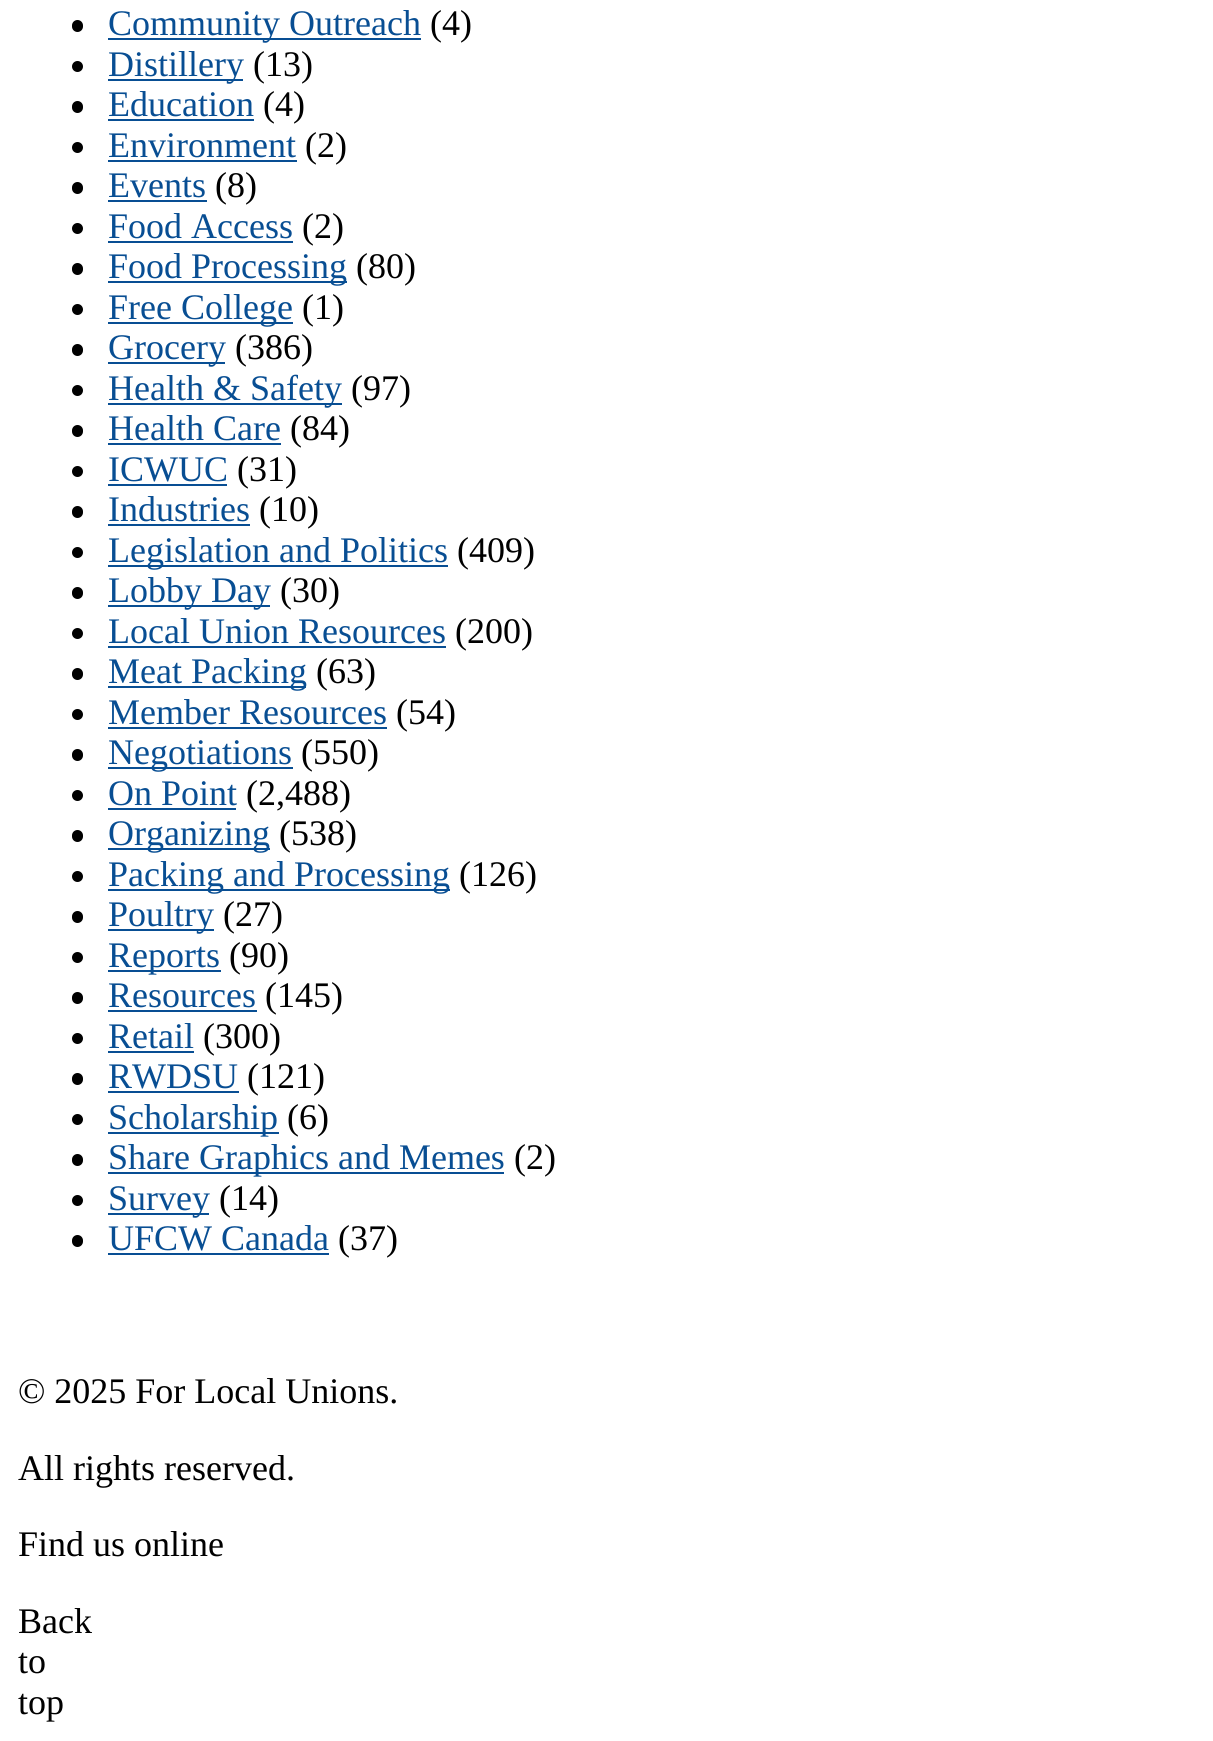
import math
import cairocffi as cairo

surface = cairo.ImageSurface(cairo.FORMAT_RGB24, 1213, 1741)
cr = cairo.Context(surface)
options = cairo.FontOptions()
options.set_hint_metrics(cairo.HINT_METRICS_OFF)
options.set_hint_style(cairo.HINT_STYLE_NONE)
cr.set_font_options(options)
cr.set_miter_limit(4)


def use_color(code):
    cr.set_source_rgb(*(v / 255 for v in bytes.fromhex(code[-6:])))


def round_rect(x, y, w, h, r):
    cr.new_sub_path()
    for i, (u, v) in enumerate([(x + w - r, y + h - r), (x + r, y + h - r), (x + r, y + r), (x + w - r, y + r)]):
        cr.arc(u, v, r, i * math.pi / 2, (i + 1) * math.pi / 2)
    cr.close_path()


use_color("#ffffff")
cr.paint()
use_color("#000000")
round_rect(72, 20, 11, 12, 5.5)
cr.fill()
use_color("#084e93")
cr.rectangle(108, 38, 313, 2)
cr.fill()
cr.select_font_face("Liberation Serif")
cr.set_font_size(36)
cr.move_to(108, 35)
cr.show_text("Community Outreach")
use_color("#000000")
cr.move_to(430, 35)
cr.show_text("(4)")
cr.new_path()
cr.arc(77.5, 66.5, 5.5, 0, 2 * math.pi)
cr.fill()
use_color("#084e93")
cr.rectangle(108, 79, 135, 2)
cr.fill()
cr.move_to(108, 76)
cr.show_text("Distillery")
use_color("#000000")
cr.move_to(253, 76)
cr.show_text("(13)")
round_rect(72, 101, 11, 12, 5.5)
cr.fill()
use_color("#084e93")
cr.move_to(108, 116)
cr.show_text("Education")
cr.rectangle(108, 119, 146, 2)
cr.fill()
use_color("#000000")
cr.move_to(263, 116)
cr.show_text("(4)")
cr.new_path()
cr.arc(77.5, 147.5, 5.5, 0, 2 * math.pi)
cr.fill()
use_color("#084e93")
cr.move_to(108, 157)
cr.show_text("Environment")
cr.rectangle(108, 160, 189, 2)
cr.fill()
use_color("#000000")
cr.move_to(305, 157)
cr.show_text("(2)")
round_rect(72, 182, 11, 12, 5.5)
cr.fill()
use_color("#084e93")
cr.move_to(108, 197)
cr.show_text("Events")
cr.rectangle(108, 200, 99, 2)
cr.fill()
use_color("#000000")
cr.move_to(215, 197)
cr.show_text("(8)")
cr.new_path()
cr.arc(77.5, 228.5, 5.5, 0, 2 * math.pi)
cr.fill()
use_color("#084e93")
cr.move_to(108, 238)
cr.show_text("Food Access")
cr.rectangle(108, 241, 185, 2)
cr.fill()
use_color("#000000")
cr.move_to(302, 238)
cr.show_text("(2)")
round_rect(72, 263, 11, 12, 5.5)
cr.fill()
use_color("#084e93")
cr.rectangle(108, 281, 239, 2)
cr.fill()
cr.move_to(108, 278)
cr.show_text("Food Processing")
use_color("#000000")
cr.move_to(356, 278)
cr.show_text("(80)")
cr.new_path()
cr.arc(77.5, 309.5, 5.5, 0, 2 * math.pi)
cr.fill()
use_color("#084e93")
cr.rectangle(108, 322, 185, 2)
cr.fill()
cr.move_to(108, 319)
cr.show_text("Free College")
use_color("#000000")
cr.move_to(302, 319)
cr.show_text("(1)")
round_rect(72, 344, 11, 12, 5.5)
cr.fill()
use_color("#084e93")
cr.rectangle(108, 362, 117, 2)
cr.fill()
cr.move_to(108, 359)
cr.show_text("Grocery")
use_color("#000000")
cr.move_to(235, 359)
cr.show_text("(386)")
cr.new_path()
cr.arc(77.5, 390.5, 5.5, 0, 2 * math.pi)
cr.fill()
use_color("#084e93")
cr.rectangle(108, 403, 234, 2)
cr.fill()
cr.move_to(108, 400)
cr.show_text("Health & Safety")
use_color("#000000")
cr.move_to(351, 400)
cr.show_text("(97)")
round_rect(72, 425, 11, 12, 5.5)
cr.fill()
use_color("#084e93")
cr.move_to(108, 440)
cr.show_text("Health Care")
cr.rectangle(108, 443, 173, 2)
cr.fill()
use_color("#000000")
cr.move_to(290, 440)
cr.show_text("(84)")
cr.new_path()
cr.arc(77.5, 471.5, 5.5, 0, 2 * math.pi)
cr.fill()
use_color("#084e93")
cr.move_to(108, 481)
cr.show_text("ICWUC")
cr.rectangle(108, 484, 119, 2)
cr.fill()
use_color("#000000")
cr.move_to(237, 481)
cr.show_text("(31)")
round_rect(72, 506, 11, 12, 5.5)
cr.fill()
use_color("#084e93")
cr.move_to(108, 521)
cr.show_text("Industries")
cr.rectangle(108, 524, 142, 2)
cr.fill()
use_color("#000000")
cr.move_to(259, 521)
cr.show_text("(10)")
cr.new_path()
cr.arc(77.5, 552.5, 5.5, 0, 2 * math.pi)
cr.fill()
use_color("#084e93")
cr.rectangle(108, 565, 340, 2)
cr.fill()
cr.move_to(108, 562)
cr.show_text("Legislation and Politics")
use_color("#000000")
cr.move_to(457, 562)
cr.show_text("(409)")
round_rect(72, 587, 11, 12, 5.5)
cr.fill()
use_color("#084e93")
cr.rectangle(108, 605, 162, 2)
cr.fill()
cr.move_to(108, 602)
cr.show_text("Lobby Day")
use_color("#000000")
cr.move_to(280, 602)
cr.show_text("(30)")
cr.new_path()
cr.arc(77.5, 633.5, 5.5, 0, 2 * math.pi)
cr.fill()
use_color("#084e93")
cr.move_to(108, 643)
cr.show_text("Local Union Resources")
cr.rectangle(108, 646, 338, 2)
cr.fill()
use_color("#000000")
cr.move_to(455, 643)
cr.show_text("(200)")
round_rect(72, 668, 11, 12, 5.5)
cr.fill()
use_color("#084e93")
cr.rectangle(108, 686, 198, 2)
cr.fill()
cr.move_to(108, 683)
cr.show_text("Meat Packing")
use_color("#000000")
cr.move_to(316, 683)
cr.show_text("(63)")
cr.new_path()
cr.arc(77.5, 714.5, 5.5, 0, 2 * math.pi)
cr.fill()
use_color("#084e93")
cr.move_to(108, 724)
cr.show_text("Member Resources")
cr.rectangle(108, 727, 279, 2)
cr.fill()
use_color("#000000")
cr.move_to(396, 724)
cr.show_text("(54)")
round_rect(72, 749, 11, 12, 5.5)
cr.fill()
use_color("#084e93")
cr.rectangle(108, 767, 185, 2)
cr.fill()
cr.move_to(108, 764)
cr.show_text("Negotiations")
use_color("#000000")
cr.move_to(301, 764)
cr.show_text("(550)")
cr.new_path()
cr.arc(77.5, 795.5, 5.5, 0, 2 * math.pi)
cr.fill()
use_color("#084e93")
cr.move_to(108, 805)
cr.show_text("On Point")
cr.rectangle(108, 808, 128, 2)
cr.fill()
use_color("#000000")
cr.move_to(246, 805)
cr.show_text("(2,488)")
round_rect(72, 830, 11, 12, 5.5)
cr.fill()
use_color("#084e93")
cr.rectangle(108, 848, 162, 2)
cr.fill()
cr.move_to(108, 845)
cr.show_text("Organizing")
use_color("#000000")
cr.move_to(279, 845)
cr.show_text("(538)")
cr.new_path()
cr.arc(77.5, 876.5, 5.5, 0, 2 * math.pi)
cr.fill()
use_color("#084e93")
cr.rectangle(108, 889, 342, 2)
cr.fill()
cr.move_to(108, 886)
cr.show_text("Packing and Processing")
use_color("#000000")
cr.move_to(459, 886)
cr.show_text("(126)")
round_rect(72, 911, 11, 12, 5.5)
cr.fill()
use_color("#084e93")
cr.rectangle(108, 929, 106, 2)
cr.fill()
cr.move_to(108, 926)
cr.show_text("Poultry")
use_color("#000000")
cr.move_to(223, 926)
cr.show_text("(27)")
cr.new_path()
cr.arc(77.5, 957.5, 5.5, 0, 2 * math.pi)
cr.fill()
use_color("#084e93")
cr.rectangle(108, 970, 113, 2)
cr.fill()
cr.move_to(108, 967)
cr.show_text("Reports")
use_color("#000000")
cr.move_to(229, 967)
cr.show_text("(90)")
round_rect(72, 992, 11, 12, 5.5)
cr.fill()
use_color("#084e93")
cr.move_to(108, 1007)
cr.show_text("Resources")
cr.rectangle(108, 1010, 149, 2)
cr.fill()
use_color("#000000")
cr.move_to(265, 1007)
cr.show_text("(145)")
cr.new_path()
cr.arc(77.5, 1038.5, 5.5, 0, 2 * math.pi)
cr.fill()
use_color("#084e93")
cr.move_to(108, 1048)
cr.show_text("Retail")
cr.rectangle(108, 1051, 86, 2)
cr.fill()
use_color("#000000")
cr.move_to(203, 1048)
cr.show_text("(300)")
round_rect(72, 1073, 11, 12, 5.5)
cr.fill()
use_color("#084e93")
cr.move_to(108, 1088)
cr.show_text("RWDSU")
cr.rectangle(108, 1091, 131, 2)
cr.fill()
use_color("#000000")
cr.move_to(247, 1088)
cr.show_text("(121)")
cr.new_path()
cr.arc(77.5, 1119.5, 5.5, 0, 2 * math.pi)
cr.fill()
use_color("#084e93")
cr.rectangle(108, 1132, 171, 2)
cr.fill()
cr.move_to(108, 1129)
cr.show_text("Scholarship")
use_color("#000000")
cr.move_to(287, 1129)
cr.show_text("(6)")
round_rect(72, 1154, 11, 12, 5.5)
cr.fill()
use_color("#084e93")
cr.rectangle(108, 1172, 396, 2)
cr.fill()
cr.move_to(108, 1169)
cr.show_text("Share Graphics and Memes")
use_color("#000000")
cr.move_to(514, 1169)
cr.show_text("(2)")
cr.new_path()
cr.arc(77.5, 1200.5, 5.5, 0, 2 * math.pi)
cr.fill()
use_color("#084e93")
cr.rectangle(108, 1213, 101, 2)
cr.fill()
cr.move_to(108, 1210)
cr.show_text("Survey")
use_color("#000000")
cr.move_to(219, 1210)
cr.show_text("(14)")
round_rect(72, 1235, 11, 12, 5.5)
cr.fill()
use_color("#084e93")
cr.move_to(108, 1250)
cr.show_text("UFCW Canada")
cr.rectangle(108, 1253, 221, 2)
cr.fill()
use_color("#000000")
cr.move_to(338, 1250)
cr.show_text("(37)")
cr.move_to(18, 1403)
cr.show_text("© 2025 For Local Unions.")
cr.move_to(18, 1480)
cr.show_text("All rights reserved.")
cr.move_to(18, 1556)
cr.show_text("Find us online")
cr.move_to(18, 1633)
cr.show_text("Back")
cr.move_to(18, 1673)
cr.show_text("to")
cr.move_to(18, 1714)
cr.show_text("top")
surface.write_to_png("result.png")
